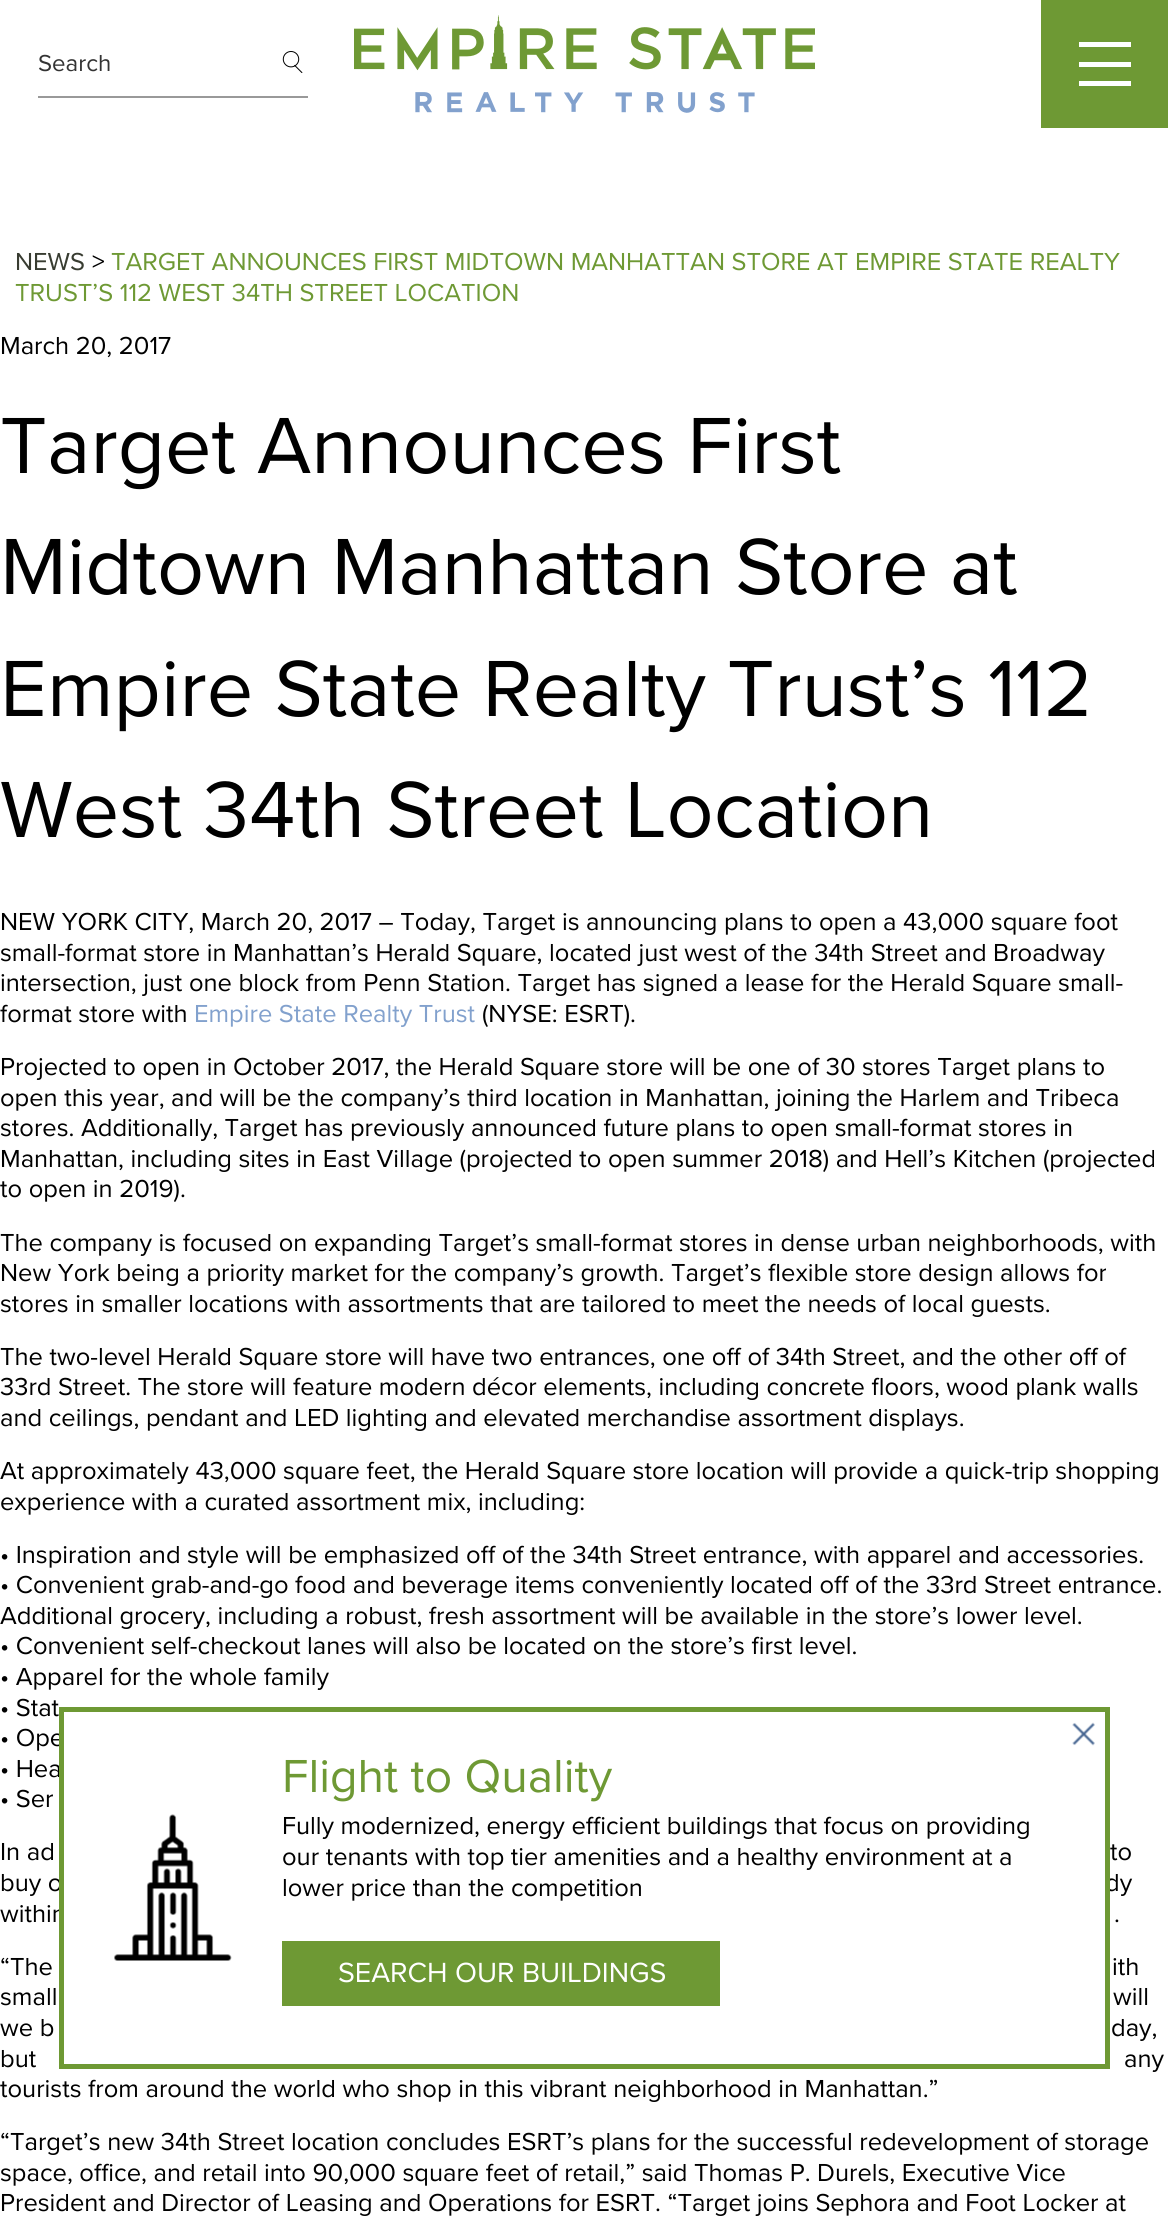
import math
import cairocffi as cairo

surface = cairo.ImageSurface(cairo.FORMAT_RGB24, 1168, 2218)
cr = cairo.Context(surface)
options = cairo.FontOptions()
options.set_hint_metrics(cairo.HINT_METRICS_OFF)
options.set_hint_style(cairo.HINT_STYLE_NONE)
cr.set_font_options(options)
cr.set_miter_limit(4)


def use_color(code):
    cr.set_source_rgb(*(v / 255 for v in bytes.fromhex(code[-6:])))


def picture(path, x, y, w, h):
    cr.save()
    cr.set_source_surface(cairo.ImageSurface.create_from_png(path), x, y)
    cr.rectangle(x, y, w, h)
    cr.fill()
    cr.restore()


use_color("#ffffff")
cr.paint()
picture("img1.png", 282, 51, 21, 22)
use_color("#999999")
cr.rectangle(38, 96, 270, 2)
cr.fill()
cr.select_font_face("Proxima Nova")
cr.set_font_size(24)
use_color("#333333")
cr.move_to(38, 71)
cr.show_text("Search")
picture("img2.png", 354, 15, 461, 98)
use_color("#6e9934")
cr.rectangle(1041, 0, 127, 128)
cr.fill()
use_color("#ffffff")
cr.rectangle(1079, 42, 52, 5)
cr.fill()
cr.rectangle(1079, 62, 52, 5)
cr.fill()
cr.rectangle(1079, 81, 52, 5)
cr.fill()
cr.set_font_size(25.5)
use_color("#383c31")
cr.move_to(15, 270)
cr.show_text("NEWS")
use_color("#000000")
cr.move_to(92, 270)
cr.show_text(">")
use_color("#6e9934")
cr.move_to(111, 270)
cr.show_text("TARGET ANNOUNCES FIRST MIDTOWN MANHATTAN STORE AT EMPIRE STATE REALTY")
cr.move_to(15, 301)
cr.show_text("TRUST’S 112 WEST 34TH STREET LOCATION")
use_color("#000000")
cr.move_to(0, 354)
cr.show_text("March 20, 2017")
cr.set_font_size(82.5)
cr.move_to(0, 473)
cr.show_text("Target Announces First")
cr.move_to(0, 594)
cr.show_text("Midtown Manhattan Store at")
cr.move_to(0, 716)
cr.show_text("Empire State Realty Trust’s 112")
cr.move_to(0, 837)
cr.show_text("West 34th Street Location")
cr.set_font_size(25.5)
cr.move_to(0, 930)
cr.show_text("NEW YORK CITY, March 20, 2017 – Today, Target is announcing plans to open a 43,000 square foot")
cr.move_to(0, 961)
cr.show_text("small-format store in Manhattan’s Herald Square, located just west of the 34th Street and Broadway")
cr.move_to(0, 991)
cr.show_text("intersection, just one block from Penn Station. Target has signed a lease for the Herald Square small-")
cr.move_to(0, 1022)
cr.show_text("format store with")
use_color("#82a1cd")
cr.move_to(194, 1022)
cr.show_text("Empire State Realty Trust")
use_color("#000000")
cr.move_to(482, 1022)
cr.show_text("(NYSE: ESRT).")
cr.move_to(0, 1075)
cr.show_text("Projected to open in October 2017, the Herald Square store will be one of 30 stores Target plans to")
cr.move_to(0, 1106)
cr.show_text("open this year, and will be the company’s third location in Manhattan, joining the Harlem and Tribeca")
cr.move_to(0, 1136)
cr.show_text("stores. Additionally, Target has previously announced future plans to open small-format stores in")
cr.move_to(0, 1167)
cr.show_text("Manhattan, including sites in East Village (projected to open summer 2018) and Hell’s Kitchen (projected")
cr.move_to(0, 1197)
cr.show_text("to open in 2019).")
cr.move_to(0, 1251)
cr.show_text("The company is focused on expanding Target’s small-format stores in dense urban neighborhoods, with")
cr.move_to(0, 1281)
cr.show_text("New York being a priority market for the company’s growth. Target’s flexible store design allows for")
cr.move_to(0, 1312)
cr.show_text("stores in smaller locations with assortments that are tailored to meet the needs of local guests.")
cr.move_to(0, 1365)
cr.show_text("The two-level Herald Square store will have two entrances, one off of 34th Street, and the other off of")
cr.move_to(0, 1395)
cr.show_text("33rd Street. The store will feature modern décor elements, including concrete floors, wood plank walls")
cr.move_to(0, 1426)
cr.show_text("and ceilings, pendant and LED lighting and elevated merchandise assortment displays.")
cr.move_to(0, 1479)
cr.show_text("At approximately 43,000 square feet, the Herald Square store location will provide a quick-trip shopping")
cr.move_to(0, 1510)
cr.show_text("experience with a curated assortment mix, including:")
cr.move_to(0, 1563)
cr.show_text("• Inspiration and style will be emphasized off of the 34th Street entrance, with apparel and accessories.")
cr.move_to(0, 1593)
cr.show_text("• Convenient grab-and-go food and beverage items conveniently located off of the 33rd Street entrance.")
cr.move_to(0, 1624)
cr.show_text("Additional grocery, including a robust, fresh assortment will be available in the store’s lower level.")
cr.move_to(0, 1654)
cr.show_text("• Convenient self-checkout lanes will also be located on the store’s first level.")
cr.move_to(0, 1685)
cr.show_text("• Apparel for the whole family")
cr.move_to(0, 1716)
cr.show_text("• Stat")
cr.move_to(0, 1746)
cr.show_text("• Ope")
cr.move_to(0, 1777)
cr.show_text("• Hea")
cr.move_to(0, 1807)
cr.show_text("• Ser")
cr.move_to(0, 1860)
cr.show_text("In ad")
cr.move_to(1110, 1860)
cr.show_text("to")
cr.move_to(0, 1891)
cr.show_text("buy o")
cr.move_to(1105, 1891)
cr.show_text("dy")
cr.move_to(0, 1922)
cr.show_text("within")
cr.move_to(1114, 1922)
cr.show_text(".")
cr.move_to(0, 1975)
cr.show_text("“The")
cr.move_to(1112, 1975)
cr.show_text("ith")
cr.move_to(0, 2005)
cr.show_text("small")
cr.move_to(1113, 2005)
cr.show_text("will")
cr.move_to(0, 2036)
cr.show_text("we b")
cr.move_to(1111, 2036)
cr.show_text("day,")
cr.move_to(0, 2067)
cr.show_text("but")
cr.move_to(1124, 2067)
cr.show_text("any")
cr.move_to(0, 2097)
cr.show_text("tourists from around the world who shop in this vibrant neighborhood in Manhattan.”")
cr.move_to(0, 2150)
cr.show_text("“Target’s new 34th Street location concludes ESRT’s plans for the successful redevelopment of storage")
cr.move_to(0, 2181)
cr.show_text("space, office, and retail into 90,000 square feet of retail,” said Thomas P. Durels, Executive Vice")
cr.move_to(0, 2211)
cr.show_text("President and Director of Leasing and Operations for ESRT. “Target joins Sephora and Foot Locker at")
cr.rectangle(61.5, 1709.5, 1046, 357)
use_color("#6e9934")
cr.set_line_width(5)
cr.stroke()
picture("img3.png", 1072, 1722, 23, 24)
picture("img4.png", 114, 1814, 118, 147)
cr.set_font_size(48)
cr.move_to(282, 1792)
cr.show_text("Flight to Quality")
cr.set_font_size(25.5)
use_color("#000000")
cr.move_to(282, 1834)
cr.show_text("Fully modernized, energy efficient buildings that focus on providing")
cr.move_to(282, 1865)
cr.show_text("our tenants with top tier amenities and a healthy environment at a")
cr.move_to(282, 1896)
cr.show_text("lower price than the competition")
use_color("#6e9934")
cr.rectangle(282, 1941, 438, 65)
cr.fill()
cr.set_font_size(28.75)
use_color("#ffffff")
cr.move_to(338, 1982)
cr.show_text("SEARCH OUR BUILDINGS")
surface.write_to_png("result.png")
